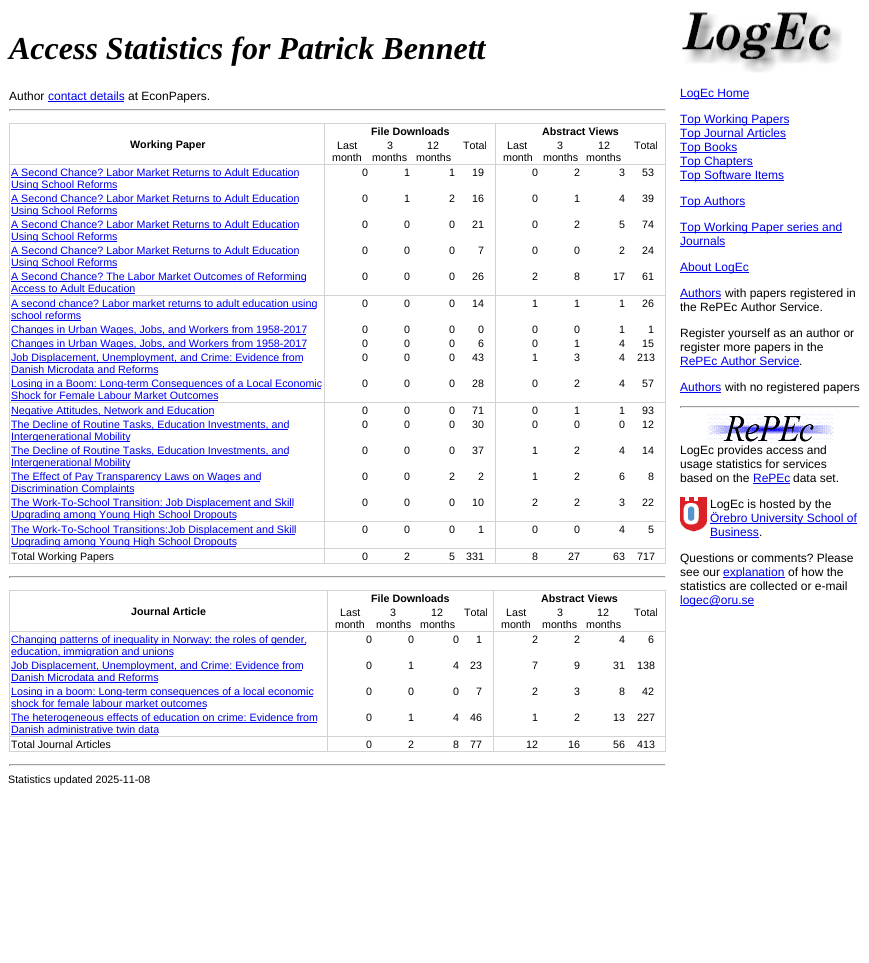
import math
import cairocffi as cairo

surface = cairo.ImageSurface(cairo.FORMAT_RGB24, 869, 963)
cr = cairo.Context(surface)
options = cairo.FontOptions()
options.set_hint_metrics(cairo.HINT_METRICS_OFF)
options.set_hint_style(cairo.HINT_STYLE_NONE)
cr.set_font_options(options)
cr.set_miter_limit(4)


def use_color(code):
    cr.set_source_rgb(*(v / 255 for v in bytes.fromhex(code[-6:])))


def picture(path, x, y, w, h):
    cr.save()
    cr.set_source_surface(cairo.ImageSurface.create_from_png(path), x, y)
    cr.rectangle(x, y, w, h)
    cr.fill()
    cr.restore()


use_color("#ffffff")
cr.paint()
cr.select_font_face("Liberation Serif", cairo.FONT_SLANT_ITALIC, cairo.FONT_WEIGHT_BOLD)
cr.set_font_size(32)
use_color("#000000")
cr.move_to(9, 59)
cr.show_text("Access Statistics for Patrick Bennett")
cr.select_font_face("Liberation Sans")
cr.set_font_size(12)
cr.move_to(9, 100)
cr.show_text("Author")
use_color("#0000ee")
cr.move_to(48, 100)
cr.show_text("contact details")
cr.rectangle(48, 101, 76, 1)
cr.fill()
use_color("#000000")
cr.move_to(128, 100)
cr.show_text("at EconPapers.")
use_color("#9f9f9f")
cr.rectangle(9, 109, 657, 1)
cr.fill()
use_color("#eeeeee")
cr.rectangle(665, 109, 1, 2)
cr.fill()
cr.rectangle(9, 110, 657, 1)
cr.fill()
use_color("#9f9f9f")
cr.rectangle(9, 109, 1, 2)
cr.fill()
use_color("#d3d3d3")
cr.rectangle(324, 123, 1, 441)
cr.fill()
cr.rectangle(9, 123, 1, 441)
cr.fill()
cr.rectangle(495, 123, 1, 441)
cr.fill()
cr.rectangle(665, 123, 1, 441)
cr.fill()
cr.rectangle(9, 123, 657, 1)
cr.fill()
cr.select_font_face("Liberation Sans", cairo.FONT_SLANT_NORMAL, cairo.FONT_WEIGHT_BOLD)
cr.set_font_size(10.7)
use_color("#000000")
cr.move_to(371, 135)
cr.show_text("File Downloads")
cr.move_to(542, 135)
cr.show_text("Abstract Views")
cr.move_to(130, 148)
cr.show_text("Working Paper")
use_color("#d3d3d3")
cr.rectangle(9, 164, 657, 1)
cr.fill()
cr.select_font_face("Liberation Sans")
use_color("#000000")
cr.move_to(337, 149)
cr.show_text("Last")
cr.move_to(332, 161)
cr.show_text("month")
cr.move_to(387, 149)
cr.show_text("3")
cr.move_to(372, 161)
cr.show_text("months")
cr.move_to(427, 149)
cr.show_text("12")
cr.move_to(416, 161)
cr.show_text("months")
cr.move_to(463, 149)
cr.show_text("Total")
cr.move_to(507, 149)
cr.show_text("Last")
cr.move_to(503, 161)
cr.show_text("month")
cr.move_to(557, 149)
cr.show_text("3")
cr.move_to(543, 161)
cr.show_text("months")
cr.move_to(598, 149)
cr.show_text("12")
cr.move_to(586, 161)
cr.show_text("months")
cr.move_to(634, 149)
cr.show_text("Total")
use_color("#0000ee")
cr.move_to(11, 176)
cr.show_text("A Second Chance? Labor Market Returns to Adult Education")
cr.rectangle(11, 177, 287, 1)
cr.fill()
cr.rectangle(11, 189, 106, 1)
cr.fill()
cr.move_to(11, 188)
cr.show_text("Using School Reforms")
use_color("#000000")
cr.move_to(362, 176)
cr.show_text("0")
cr.move_to(404, 176)
cr.show_text("1")
cr.move_to(449, 176)
cr.show_text("1")
cr.move_to(472, 176)
cr.show_text("19")
cr.move_to(532, 176)
cr.show_text("0")
cr.move_to(574, 176)
cr.show_text("2")
cr.move_to(619, 176)
cr.show_text("3")
cr.move_to(642, 176)
cr.show_text("53")
use_color("#0000ee")
cr.move_to(11, 202)
cr.show_text("A Second Chance? Labor Market Returns to Adult Education")
cr.rectangle(11, 203, 287, 1)
cr.fill()
cr.rectangle(11, 215, 106, 1)
cr.fill()
cr.move_to(11, 214)
cr.show_text("Using School Reforms")
use_color("#000000")
cr.move_to(362, 202)
cr.show_text("0")
cr.move_to(404, 202)
cr.show_text("1")
cr.move_to(449, 202)
cr.show_text("2")
cr.move_to(472, 202)
cr.show_text("16")
cr.move_to(532, 202)
cr.show_text("0")
cr.move_to(574, 202)
cr.show_text("1")
cr.move_to(619, 202)
cr.show_text("4")
cr.move_to(642, 202)
cr.show_text("39")
use_color("#0000ee")
cr.move_to(11, 228)
cr.show_text("A Second Chance? Labor Market Returns to Adult Education")
cr.rectangle(11, 229, 287, 1)
cr.fill()
cr.rectangle(11, 241, 106, 1)
cr.fill()
cr.move_to(11, 240)
cr.show_text("Using School Reforms")
use_color("#000000")
cr.move_to(362, 228)
cr.show_text("0")
cr.move_to(404, 228)
cr.show_text("0")
cr.move_to(449, 228)
cr.show_text("0")
cr.move_to(472, 228)
cr.show_text("21")
cr.move_to(532, 228)
cr.show_text("0")
cr.move_to(574, 228)
cr.show_text("2")
cr.move_to(619, 228)
cr.show_text("5")
cr.move_to(642, 228)
cr.show_text("74")
use_color("#0000ee")
cr.move_to(11, 254)
cr.show_text("A Second Chance? Labor Market Returns to Adult Education")
cr.rectangle(11, 255, 287, 1)
cr.fill()
cr.rectangle(11, 267, 106, 1)
cr.fill()
cr.move_to(11, 266)
cr.show_text("Using School Reforms")
use_color("#000000")
cr.move_to(362, 254)
cr.show_text("0")
cr.move_to(404, 254)
cr.show_text("0")
cr.move_to(449, 254)
cr.show_text("0")
cr.move_to(478, 254)
cr.show_text("7")
cr.move_to(532, 254)
cr.show_text("0")
cr.move_to(574, 254)
cr.show_text("0")
cr.move_to(619, 254)
cr.show_text("2")
cr.move_to(642, 254)
cr.show_text("24")
use_color("#d3d3d3")
cr.rectangle(9, 295, 657, 1)
cr.fill()
use_color("#0000ee")
cr.rectangle(11, 281, 294, 1)
cr.fill()
cr.move_to(11, 280)
cr.show_text("A Second Chance? The Labor Market Outcomes of Reforming")
cr.move_to(11, 292)
cr.show_text("Access to Adult Education")
cr.rectangle(11, 293, 124, 1)
cr.fill()
use_color("#000000")
cr.move_to(362, 280)
cr.show_text("0")
cr.move_to(404, 280)
cr.show_text("0")
cr.move_to(449, 280)
cr.show_text("0")
cr.move_to(472, 280)
cr.show_text("26")
cr.move_to(532, 280)
cr.show_text("2")
cr.move_to(574, 280)
cr.show_text("8")
cr.move_to(613, 280)
cr.show_text("17")
cr.move_to(642, 280)
cr.show_text("61")
use_color("#0000ee")
cr.rectangle(11, 308, 305, 1)
cr.fill()
cr.move_to(11, 307)
cr.show_text("A second chance? Labor market returns to adult education using")
cr.move_to(11, 319)
cr.show_text("school reforms")
cr.rectangle(11, 320, 70, 1)
cr.fill()
use_color("#000000")
cr.move_to(362, 307)
cr.show_text("0")
cr.move_to(404, 307)
cr.show_text("0")
cr.move_to(449, 307)
cr.show_text("0")
cr.move_to(472, 307)
cr.show_text("14")
cr.move_to(532, 307)
cr.show_text("1")
cr.move_to(574, 307)
cr.show_text("1")
cr.move_to(619, 307)
cr.show_text("1")
cr.move_to(642, 307)
cr.show_text("26")
use_color("#0000ee")
cr.rectangle(11, 334, 295, 1)
cr.fill()
cr.move_to(11, 333)
cr.show_text("Changes in Urban Wages, Jobs, and Workers from 1958-2017")
use_color("#000000")
cr.move_to(362, 333)
cr.show_text("0")
cr.move_to(404, 333)
cr.show_text("0")
cr.move_to(449, 333)
cr.show_text("0")
cr.move_to(478, 333)
cr.show_text("0")
cr.move_to(532, 333)
cr.show_text("0")
cr.move_to(574, 333)
cr.show_text("0")
cr.move_to(619, 333)
cr.show_text("1")
cr.move_to(648, 333)
cr.show_text("1")
use_color("#0000ee")
cr.rectangle(11, 348, 295, 1)
cr.fill()
cr.move_to(11, 347)
cr.show_text("Changes in Urban Wages, Jobs, and Workers from 1958-2017")
use_color("#000000")
cr.move_to(362, 347)
cr.show_text("0")
cr.move_to(404, 347)
cr.show_text("0")
cr.move_to(449, 347)
cr.show_text("0")
cr.move_to(478, 347)
cr.show_text("6")
cr.move_to(532, 347)
cr.show_text("0")
cr.move_to(574, 347)
cr.show_text("1")
cr.move_to(619, 347)
cr.show_text("4")
cr.move_to(642, 347)
cr.show_text("15")
use_color("#0000ee")
cr.rectangle(11, 362, 291, 1)
cr.fill()
cr.move_to(11, 361)
cr.show_text("Job Displacement, Unemployment, and Crime: Evidence from")
cr.move_to(11, 373)
cr.show_text("Danish Microdata and Reforms")
cr.rectangle(11, 374, 147, 1)
cr.fill()
use_color("#000000")
cr.move_to(362, 361)
cr.show_text("0")
cr.move_to(404, 361)
cr.show_text("0")
cr.move_to(449, 361)
cr.show_text("0")
cr.move_to(472, 361)
cr.show_text("43")
cr.move_to(532, 361)
cr.show_text("1")
cr.move_to(574, 361)
cr.show_text("3")
cr.move_to(619, 361)
cr.show_text("4")
cr.move_to(637, 361)
cr.show_text("213")
use_color("#d3d3d3")
cr.rectangle(9, 402, 657, 1)
cr.fill()
use_color("#0000ee")
cr.rectangle(11, 388, 310, 1)
cr.fill()
cr.move_to(11, 387)
cr.show_text("Losing in a Boom: Long-term Consequences of a Local Economic")
cr.move_to(11, 399)
cr.show_text("Shock for Female Labour Market Outcomes")
cr.rectangle(11, 400, 207, 1)
cr.fill()
use_color("#000000")
cr.move_to(362, 387)
cr.show_text("0")
cr.move_to(404, 387)
cr.show_text("0")
cr.move_to(449, 387)
cr.show_text("0")
cr.move_to(472, 387)
cr.show_text("28")
cr.move_to(532, 387)
cr.show_text("0")
cr.move_to(574, 387)
cr.show_text("2")
cr.move_to(619, 387)
cr.show_text("4")
cr.move_to(642, 387)
cr.show_text("57")
use_color("#0000ee")
cr.rectangle(11, 415, 203, 1)
cr.fill()
cr.move_to(11, 414)
cr.show_text("Negative Attitudes, Network and Education")
use_color("#000000")
cr.move_to(362, 414)
cr.show_text("0")
cr.move_to(404, 414)
cr.show_text("0")
cr.move_to(449, 414)
cr.show_text("0")
cr.move_to(472, 414)
cr.show_text("71")
cr.move_to(532, 414)
cr.show_text("0")
cr.move_to(574, 414)
cr.show_text("1")
cr.move_to(619, 414)
cr.show_text("1")
cr.move_to(642, 414)
cr.show_text("93")
use_color("#0000ee")
cr.rectangle(11, 429, 277, 1)
cr.fill()
cr.move_to(11, 428)
cr.show_text("The Decline of Routine Tasks, Education Investments, and")
cr.rectangle(11, 441, 119, 1)
cr.fill()
cr.move_to(11, 440)
cr.show_text("Intergenerational Mobility")
use_color("#000000")
cr.move_to(362, 428)
cr.show_text("0")
cr.move_to(404, 428)
cr.show_text("0")
cr.move_to(449, 428)
cr.show_text("0")
cr.move_to(472, 428)
cr.show_text("30")
cr.move_to(532, 428)
cr.show_text("0")
cr.move_to(574, 428)
cr.show_text("0")
cr.move_to(619, 428)
cr.show_text("0")
cr.move_to(642, 428)
cr.show_text("12")
use_color("#0000ee")
cr.rectangle(11, 455, 277, 1)
cr.fill()
cr.move_to(11, 454)
cr.show_text("The Decline of Routine Tasks, Education Investments, and")
cr.rectangle(11, 467, 119, 1)
cr.fill()
cr.move_to(11, 466)
cr.show_text("Intergenerational Mobility")
use_color("#000000")
cr.move_to(362, 454)
cr.show_text("0")
cr.move_to(404, 454)
cr.show_text("0")
cr.move_to(449, 454)
cr.show_text("0")
cr.move_to(472, 454)
cr.show_text("37")
cr.move_to(532, 454)
cr.show_text("1")
cr.move_to(574, 454)
cr.show_text("2")
cr.move_to(619, 454)
cr.show_text("4")
cr.move_to(642, 454)
cr.show_text("14")
use_color("#0000ee")
cr.rectangle(11, 481, 249, 1)
cr.fill()
cr.move_to(11, 480)
cr.show_text("The Effect of Pay Transparency Laws on Wages and")
cr.rectangle(11, 493, 123, 1)
cr.fill()
cr.move_to(11, 492)
cr.show_text("Discrimination Complaints")
use_color("#000000")
cr.move_to(362, 480)
cr.show_text("0")
cr.move_to(404, 480)
cr.show_text("0")
cr.move_to(449, 480)
cr.show_text("2")
cr.move_to(478, 480)
cr.show_text("2")
cr.move_to(532, 480)
cr.show_text("1")
cr.move_to(574, 480)
cr.show_text("2")
cr.move_to(619, 480)
cr.show_text("6")
cr.move_to(648, 480)
cr.show_text("8")
use_color("#d3d3d3")
cr.rectangle(9, 521, 657, 1)
cr.fill()
use_color("#0000ee")
cr.rectangle(11, 507, 282, 1)
cr.fill()
cr.move_to(11, 506)
cr.show_text("The Work-To-School Transition: Job Displacement and Skill")
cr.rectangle(11, 519, 225, 1)
cr.fill()
cr.move_to(11, 518)
cr.show_text("Upgrading among Young High School Dropouts")
use_color("#000000")
cr.move_to(362, 506)
cr.show_text("0")
cr.move_to(404, 506)
cr.show_text("0")
cr.move_to(449, 506)
cr.show_text("0")
cr.move_to(472, 506)
cr.show_text("10")
cr.move_to(532, 506)
cr.show_text("2")
cr.move_to(574, 506)
cr.show_text("2")
cr.move_to(619, 506)
cr.show_text("3")
cr.move_to(642, 506)
cr.show_text("22")
use_color("#d3d3d3")
cr.rectangle(9, 548, 657, 1)
cr.fill()
use_color("#0000ee")
cr.rectangle(11, 534, 284, 1)
cr.fill()
cr.move_to(11, 533)
cr.show_text("The Work-To-School Transitions:Job Displacement and Skill")
cr.rectangle(11, 546, 225, 1)
cr.fill()
cr.move_to(11, 545)
cr.show_text("Upgrading among Young High School Dropouts")
use_color("#000000")
cr.move_to(362, 533)
cr.show_text("0")
cr.move_to(404, 533)
cr.show_text("0")
cr.move_to(449, 533)
cr.show_text("0")
cr.move_to(478, 533)
cr.show_text("1")
cr.move_to(532, 533)
cr.show_text("0")
cr.move_to(574, 533)
cr.show_text("0")
cr.move_to(619, 533)
cr.show_text("4")
cr.move_to(648, 533)
cr.show_text("5")
use_color("#d3d3d3")
cr.rectangle(9, 563, 657, 1)
cr.fill()
use_color("#000000")
cr.move_to(11, 560)
cr.show_text("Total Working Papers")
cr.move_to(362, 560)
cr.show_text("0")
cr.move_to(404, 560)
cr.show_text("2")
cr.move_to(449, 560)
cr.show_text("5")
cr.move_to(466, 560)
cr.show_text("331")
cr.move_to(532, 560)
cr.show_text("8")
cr.move_to(568, 560)
cr.show_text("27")
cr.move_to(613, 560)
cr.show_text("63")
cr.move_to(637, 560)
cr.show_text("717")
use_color("#9f9f9f")
cr.rectangle(9, 576, 657, 1)
cr.fill()
use_color("#eeeeee")
cr.rectangle(665, 576, 1, 2)
cr.fill()
cr.rectangle(9, 577, 657, 1)
cr.fill()
use_color("#9f9f9f")
cr.rectangle(9, 576, 1, 2)
cr.fill()
use_color("#d3d3d3")
cr.rectangle(327, 590, 1, 162)
cr.fill()
cr.rectangle(9, 590, 1, 162)
cr.fill()
cr.rectangle(493, 590, 1, 162)
cr.fill()
cr.rectangle(665, 590, 1, 162)
cr.fill()
cr.rectangle(9, 590, 657, 1)
cr.fill()
cr.select_font_face("Liberation Sans", cairo.FONT_SLANT_NORMAL, cairo.FONT_WEIGHT_BOLD)
use_color("#000000")
cr.move_to(371, 602)
cr.show_text("File Downloads")
cr.move_to(541, 602)
cr.show_text("Abstract Views")
cr.move_to(131, 615)
cr.show_text("Journal Article")
use_color("#d3d3d3")
cr.rectangle(9, 631, 657, 1)
cr.fill()
cr.select_font_face("Liberation Sans")
use_color("#000000")
cr.move_to(340, 616)
cr.show_text("Last")
cr.move_to(335, 628)
cr.show_text("month")
cr.move_to(390, 616)
cr.show_text("3")
cr.move_to(376, 628)
cr.show_text("months")
cr.move_to(431, 616)
cr.show_text("12")
cr.move_to(420, 628)
cr.show_text("months")
cr.move_to(464, 616)
cr.show_text("Total")
cr.move_to(506, 616)
cr.show_text("Last")
cr.move_to(501, 628)
cr.show_text("month")
cr.move_to(557, 616)
cr.show_text("3")
cr.move_to(542, 628)
cr.show_text("months")
cr.move_to(597, 616)
cr.show_text("12")
cr.move_to(586, 628)
cr.show_text("months")
cr.move_to(634, 616)
cr.show_text("Total")
use_color("#0000ee")
cr.rectangle(11, 644, 295, 1)
cr.fill()
cr.move_to(11, 643)
cr.show_text("Changing patterns of inequality in Norway: the roles of gender,")
cr.rectangle(11, 656, 162, 1)
cr.fill()
cr.move_to(11, 655)
cr.show_text("education, immigration and unions")
use_color("#000000")
cr.move_to(366, 643)
cr.show_text("0")
cr.move_to(408, 643)
cr.show_text("0")
cr.move_to(453, 643)
cr.show_text("0")
cr.move_to(476, 643)
cr.show_text("1")
cr.move_to(532, 643)
cr.show_text("2")
cr.move_to(574, 643)
cr.show_text("2")
cr.move_to(619, 643)
cr.show_text("4")
cr.move_to(648, 643)
cr.show_text("6")
use_color("#0000ee")
cr.rectangle(11, 670, 291, 1)
cr.fill()
cr.move_to(11, 669)
cr.show_text("Job Displacement, Unemployment, and Crime: Evidence from")
cr.move_to(11, 681)
cr.show_text("Danish Microdata and Reforms")
cr.rectangle(11, 682, 147, 1)
cr.fill()
use_color("#000000")
cr.move_to(366, 669)
cr.show_text("0")
cr.move_to(408, 669)
cr.show_text("1")
cr.move_to(453, 669)
cr.show_text("4")
cr.move_to(470, 669)
cr.show_text("23")
cr.move_to(532, 669)
cr.show_text("7")
cr.move_to(574, 669)
cr.show_text("9")
cr.move_to(613, 669)
cr.show_text("31")
cr.move_to(637, 669)
cr.show_text("138")
use_color("#0000ee")
cr.rectangle(11, 696, 302, 1)
cr.fill()
cr.move_to(11, 695)
cr.show_text("Losing in a boom: Long-term consequences of a local economic")
cr.move_to(11, 707)
cr.show_text("shock for female labour market outcomes")
cr.rectangle(11, 708, 195, 1)
cr.fill()
use_color("#000000")
cr.move_to(366, 695)
cr.show_text("0")
cr.move_to(408, 695)
cr.show_text("0")
cr.move_to(453, 695)
cr.show_text("0")
cr.move_to(476, 695)
cr.show_text("7")
cr.move_to(532, 695)
cr.show_text("2")
cr.move_to(574, 695)
cr.show_text("3")
cr.move_to(619, 695)
cr.show_text("8")
cr.move_to(642, 695)
cr.show_text("42")
use_color("#d3d3d3")
cr.rectangle(9, 736, 657, 1)
cr.fill()
use_color("#0000ee")
cr.rectangle(11, 722, 306, 1)
cr.fill()
cr.move_to(11, 721)
cr.show_text("The heterogeneous effects of education on crime: Evidence from")
cr.move_to(11, 733)
cr.show_text("Danish administrative twin data")
cr.rectangle(11, 734, 147, 1)
cr.fill()
use_color("#000000")
cr.move_to(366, 721)
cr.show_text("0")
cr.move_to(408, 721)
cr.show_text("1")
cr.move_to(453, 721)
cr.show_text("4")
cr.move_to(470, 721)
cr.show_text("46")
cr.move_to(532, 721)
cr.show_text("1")
cr.move_to(574, 721)
cr.show_text("2")
cr.move_to(613, 721)
cr.show_text("13")
cr.move_to(637, 721)
cr.show_text("227")
use_color("#d3d3d3")
cr.rectangle(9, 751, 657, 1)
cr.fill()
use_color("#000000")
cr.move_to(11, 748)
cr.show_text("Total Journal Articles")
cr.move_to(366, 748)
cr.show_text("0")
cr.move_to(408, 748)
cr.show_text("2")
cr.move_to(453, 748)
cr.show_text("8")
cr.move_to(470, 748)
cr.show_text("77")
cr.move_to(526, 748)
cr.show_text("12")
cr.move_to(568, 748)
cr.show_text("16")
cr.move_to(613, 748)
cr.show_text("56")
cr.move_to(637, 748)
cr.show_text("413")
use_color("#9f9f9f")
cr.rectangle(9, 764, 657, 1)
cr.fill()
use_color("#eeeeee")
cr.rectangle(665, 764, 1, 2)
cr.fill()
cr.rectangle(9, 765, 657, 1)
cr.fill()
use_color("#9f9f9f")
cr.rectangle(9, 764, 1, 2)
cr.fill()
picture("img1.png", 681, 9, 161, 64)
use_color("#0000ee")
cr.rectangle(680, 98, 69, 1)
cr.fill()
cr.set_font_size(12)
cr.move_to(680, 97)
cr.show_text("LogEc Home")
cr.rectangle(680, 124, 109, 1)
cr.fill()
cr.move_to(680, 123)
cr.show_text("Top Working Papers")
cr.rectangle(680, 138, 106, 1)
cr.fill()
cr.move_to(680, 137)
cr.show_text("Top Journal Articles")
cr.rectangle(680, 152, 57, 1)
cr.fill()
cr.move_to(680, 151)
cr.show_text("Top Books")
cr.rectangle(680, 166, 73, 1)
cr.fill()
cr.move_to(680, 165)
cr.show_text("Top Chapters")
cr.rectangle(680, 180, 104, 1)
cr.fill()
cr.move_to(680, 179)
cr.show_text("Top Software Items")
cr.rectangle(680, 206, 65, 1)
cr.fill()
cr.move_to(680, 205)
cr.show_text("Top Authors")
cr.rectangle(680, 232, 162, 1)
cr.fill()
cr.move_to(680, 231)
cr.show_text("Top Working Paper series and")
cr.move_to(680, 245)
cr.show_text("Journals")
cr.rectangle(680, 246, 45, 1)
cr.fill()
cr.rectangle(680, 272, 69, 1)
cr.fill()
cr.move_to(680, 271)
cr.show_text("About LogEc")
cr.move_to(680, 297)
cr.show_text("Authors")
cr.rectangle(680, 298, 41, 1)
cr.fill()
use_color("#000000")
cr.move_to(725, 297)
cr.show_text("with papers registered in")
cr.move_to(680, 311)
cr.show_text("the RePEc Author Service.")
cr.move_to(680, 337)
cr.show_text("Register yourself as an author or")
cr.move_to(680, 351)
cr.show_text("register more papers in the")
use_color("#0000ee")
cr.move_to(680, 365)
cr.show_text("RePEc Author Service")
cr.rectangle(680, 366, 119, 1)
cr.fill()
use_color("#000000")
cr.move_to(799, 365)
cr.show_text(".")
use_color("#0000ee")
cr.move_to(680, 391)
cr.show_text("Authors")
cr.rectangle(680, 392, 41, 1)
cr.fill()
use_color("#000000")
cr.move_to(725, 391)
cr.show_text("with no registered papers")
use_color("#9f9f9f")
cr.rectangle(680, 406, 180, 1)
cr.fill()
use_color("#eeeeee")
cr.rectangle(859, 406, 1, 2)
cr.fill()
cr.rectangle(680, 407, 180, 1)
cr.fill()
use_color("#9f9f9f")
cr.rectangle(680, 406, 1, 2)
cr.fill()
picture("img2.png", 707, 414, 127, 29)
use_color("#000000")
cr.move_to(680, 454)
cr.show_text("LogEc provides access and")
cr.move_to(680, 468)
cr.show_text("usage statistics for services")
cr.move_to(680, 482)
cr.show_text("based on the")
use_color("#0000ee")
cr.move_to(753, 482)
cr.show_text("RePEc")
cr.rectangle(753, 483, 37, 1)
cr.fill()
use_color("#000000")
cr.move_to(793, 482)
cr.show_text("data set.")
picture("img3.png", 680, 497, 27, 35)
cr.move_to(710, 508)
cr.show_text("LogEc is hosted by the")
use_color("#0000ee")
cr.rectangle(710, 523, 147, 1)
cr.fill()
cr.move_to(710, 522)
cr.show_text("Örebro University School of")
cr.move_to(710, 536)
cr.show_text("Business")
cr.rectangle(710, 537, 49, 1)
cr.fill()
use_color("#000000")
cr.move_to(759, 536)
cr.show_text(".")
cr.move_to(680, 562)
cr.show_text("Questions or comments? Please")
cr.move_to(680, 576)
cr.show_text("see our")
use_color("#0000ee")
cr.rectangle(723, 577, 62, 1)
cr.fill()
cr.move_to(723, 576)
cr.show_text("explanation")
use_color("#000000")
cr.move_to(788, 576)
cr.show_text("of how the")
cr.move_to(680, 590)
cr.show_text("statistics are collected or e-mail")
use_color("#0000ee")
cr.rectangle(680, 605, 74, 1)
cr.fill()
cr.move_to(680, 604)
cr.show_text("logec@oru.se")
cr.set_font_size(10.7)
use_color("#000000")
cr.move_to(8, 783)
cr.show_text("Statistics updated 2025-11-08")
surface.write_to_png("result.png")
